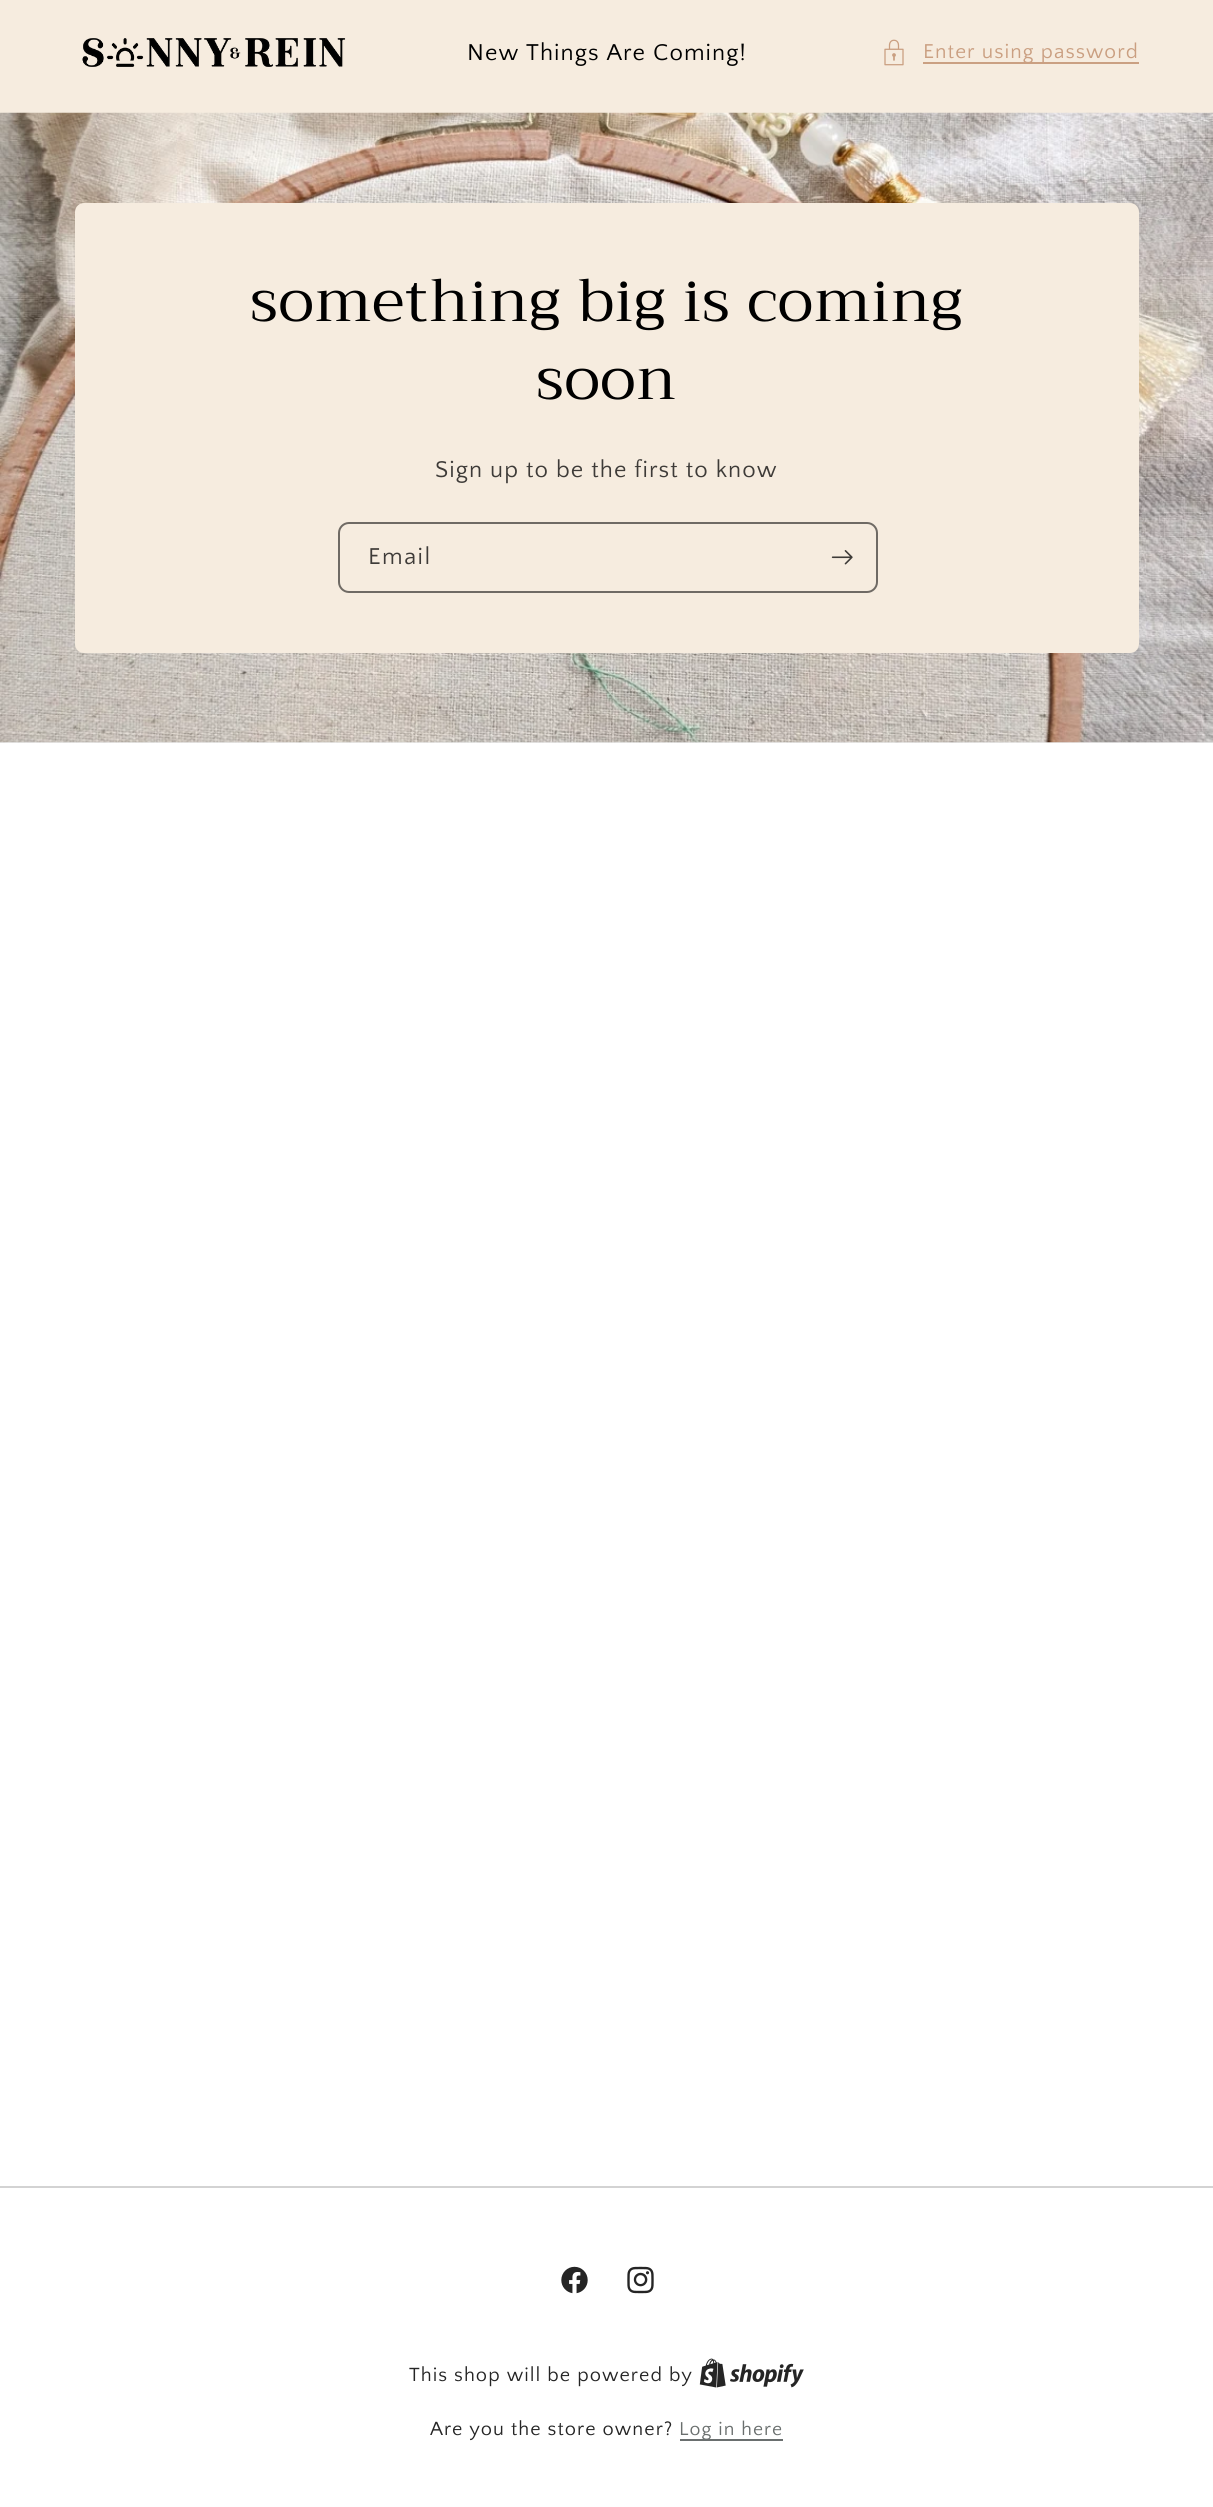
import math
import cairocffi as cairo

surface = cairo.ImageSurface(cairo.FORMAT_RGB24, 1213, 2507)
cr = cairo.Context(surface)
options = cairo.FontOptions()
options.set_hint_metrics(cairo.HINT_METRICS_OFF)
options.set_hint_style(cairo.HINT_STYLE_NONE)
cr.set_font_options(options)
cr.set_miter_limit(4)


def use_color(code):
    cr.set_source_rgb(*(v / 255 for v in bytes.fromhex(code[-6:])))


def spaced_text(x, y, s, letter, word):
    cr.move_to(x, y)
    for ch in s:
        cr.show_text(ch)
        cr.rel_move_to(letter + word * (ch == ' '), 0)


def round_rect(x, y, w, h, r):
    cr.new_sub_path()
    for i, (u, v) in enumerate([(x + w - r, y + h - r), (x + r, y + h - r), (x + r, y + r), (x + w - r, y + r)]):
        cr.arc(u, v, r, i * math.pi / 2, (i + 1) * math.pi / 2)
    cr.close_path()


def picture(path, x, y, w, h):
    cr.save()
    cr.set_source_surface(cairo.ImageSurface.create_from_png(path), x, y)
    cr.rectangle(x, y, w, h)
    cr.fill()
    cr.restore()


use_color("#ffffff")
cr.paint()
use_color("#f6ecdf")
cr.rectangle(0, 0, 1213, 113)
cr.fill()
picture("img1.png", 82, 38, 264, 29)
cr.select_font_face("Quattrocento Sans")
cr.set_font_size(24)
use_color("#000000")
spaced_text(467, 60, "New Things Are Coming!", 1.05, 0)
picture("img2.png", 884, 39, 20, 27)
use_color("#caa082")
cr.rectangle(923, 62, 216, 2)
cr.fill()
cr.set_font_size(21)
use_color("#ca9f81")
spaced_text(923, 58, "Enter using password", 1.05, 0)
use_color("#eaeaea")
cr.rectangle(0, 742, 1213, 1)
cr.fill()
picture("img3.png", 0, 112, 1213, 631)
use_color("#f6ecdf")
round_rect(75, 203, 1064, 450, 9)
cr.fill()
cr.select_font_face("Trirong")
cr.set_font_size(60)
use_color("#000000")
spaced_text(250, 321, "something big is coming", 0.9, 0)
spaced_text(536, 399, "soon", 0.9, 0)
cr.select_font_face("Quattrocento Sans")
cr.set_font_size(24)
use_color("#3e3b38")
spaced_text(435, 477, "Sign up to be the first to know", 1.05, 0)
round_rect(339, 523, 538, 69, 10)
use_color("#6f6a64")
cr.stroke()
use_color("#3e3b38")
spaced_text(368, 564, "Email", 1.5, 0)
picture("img4.png", 831, 550, 22, 15)
use_color("#d3d3d3")
cr.rectangle(0, 2186, 1213, 2)
cr.fill()
picture("img5.png", 561, 2266, 27, 28)
picture("img6.png", 627, 2266, 27, 28)
cr.set_font_size(20)
use_color("#252525")
spaced_text(409, 2381, "This shop will be powered by", 1.05, 0)
picture("img7.png", 699, 2358, 105, 30)
spaced_text(430, 2435, "Are you the store owner?", 1.05, 0)
use_color("#6a6f6f")
cr.rectangle(680, 2439, 103, 2)
cr.fill()
cr.set_font_size(19.5)
use_color("#6a6f6e")
spaced_text(679, 2435, "Log in here", 1.05, 0)
surface.write_to_png("result.png")
